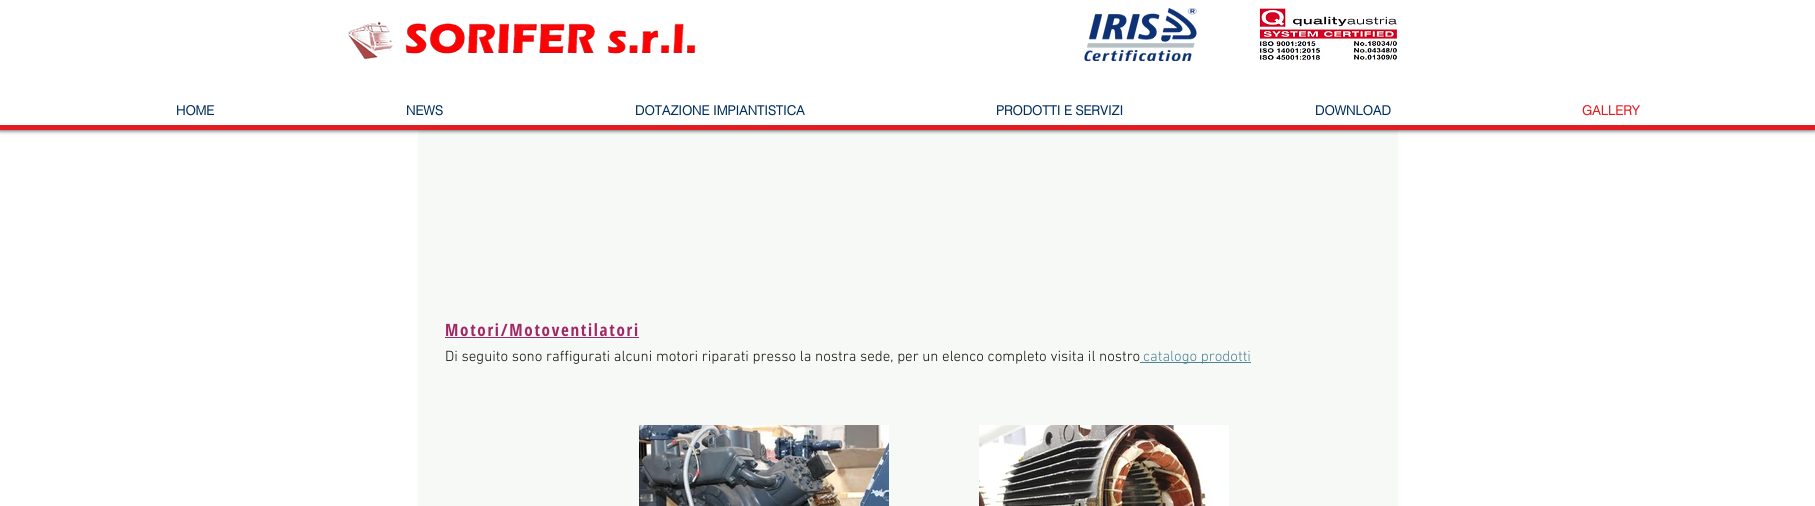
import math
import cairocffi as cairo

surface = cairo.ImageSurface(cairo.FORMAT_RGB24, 1815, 506)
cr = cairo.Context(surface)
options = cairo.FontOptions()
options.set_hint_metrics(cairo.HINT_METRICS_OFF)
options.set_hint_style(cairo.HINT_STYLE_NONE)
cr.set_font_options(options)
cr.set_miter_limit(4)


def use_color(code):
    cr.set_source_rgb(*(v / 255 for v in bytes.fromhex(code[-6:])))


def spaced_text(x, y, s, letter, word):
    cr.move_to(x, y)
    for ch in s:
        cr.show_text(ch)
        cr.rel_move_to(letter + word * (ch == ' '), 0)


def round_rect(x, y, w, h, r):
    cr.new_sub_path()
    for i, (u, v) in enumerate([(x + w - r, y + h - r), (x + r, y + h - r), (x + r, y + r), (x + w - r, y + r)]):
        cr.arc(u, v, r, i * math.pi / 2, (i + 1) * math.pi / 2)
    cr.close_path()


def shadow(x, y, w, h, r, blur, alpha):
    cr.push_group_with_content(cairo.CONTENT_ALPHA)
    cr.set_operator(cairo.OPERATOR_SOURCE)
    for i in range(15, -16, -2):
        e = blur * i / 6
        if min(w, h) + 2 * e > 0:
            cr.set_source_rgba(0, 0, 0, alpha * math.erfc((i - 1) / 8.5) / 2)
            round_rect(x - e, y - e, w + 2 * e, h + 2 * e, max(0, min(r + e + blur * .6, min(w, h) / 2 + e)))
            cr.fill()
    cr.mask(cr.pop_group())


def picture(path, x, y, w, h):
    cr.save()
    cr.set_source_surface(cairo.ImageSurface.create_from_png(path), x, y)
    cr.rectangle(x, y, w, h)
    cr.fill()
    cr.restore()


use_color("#ffffff")
cr.paint()
use_color("#f6f9f5")
cr.rectangle(418, 130, 980, 376)
cr.fill()
cr.save()
cr.rectangle(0, 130, 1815, 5)
cr.clip()
use_color("#000000")
shadow(0, 1, 1815, 130, 0, 2, 0.6)
cr.restore()
use_color("#e21c21")
cr.rectangle(0, 125, 1815, 5)
cr.fill()
picture("img1.png", 347, 21, 349, 39)
picture("img2.png", 1084, 8, 113, 53)
picture("img3.png", 1259, 8, 139, 53)
cr.select_font_face("helvetica", cairo.FONT_SLANT_NORMAL, cairo.FONT_WEIGHT_BOLD)
cr.set_font_size(13)
use_color("#002e5d")
cr.move_to(176, 115)
cr.show_text("HOME")
cr.move_to(406, 115)
cr.show_text("NEWS")
cr.move_to(635, 115)
cr.show_text("DOTAZIONE IMPIANTISTICA")
cr.move_to(996, 115)
cr.show_text("PRODOTTI E SERVIZI")
cr.move_to(1315, 115)
cr.show_text("DOWNLOAD")
use_color("#e21c21")
cr.move_to(1582, 115)
cr.show_text("GALLERY")
cr.select_font_face("Open Sans Condensed", cairo.FONT_SLANT_NORMAL, cairo.FONT_WEIGHT_BOLD)
cr.set_font_size(17)
use_color("#a12767")
spaced_text(445, 336, "Motori/Motoventilatori", 1.7, 0)
cr.rectangle(445, 337, 194, 1)
cr.fill()
cr.select_font_face("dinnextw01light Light")
cr.set_font_size(15)
use_color("#091405")
cr.move_to(445, 361)
cr.show_text("Di seguito sono raffigurati alcuni motori riparati presso la nostra sede, per un elenco completo visita il nostro")
use_color("#4d8495")
cr.rectangle(1140, 362, 111, 1)
cr.fill()
cr.move_to(1143, 361)
cr.show_text("catalogo prodotti")
picture("img4.png", 639, 425, 250, 81)
picture("img5.png", 979, 425, 250, 81)
surface.write_to_png("result.png")
